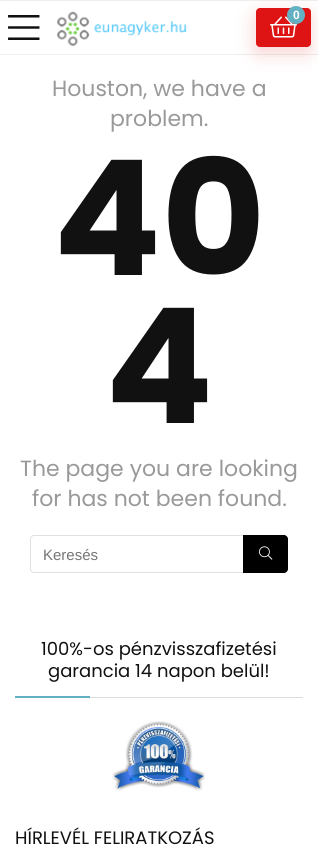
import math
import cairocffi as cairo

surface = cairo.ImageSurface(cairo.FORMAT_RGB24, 318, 858)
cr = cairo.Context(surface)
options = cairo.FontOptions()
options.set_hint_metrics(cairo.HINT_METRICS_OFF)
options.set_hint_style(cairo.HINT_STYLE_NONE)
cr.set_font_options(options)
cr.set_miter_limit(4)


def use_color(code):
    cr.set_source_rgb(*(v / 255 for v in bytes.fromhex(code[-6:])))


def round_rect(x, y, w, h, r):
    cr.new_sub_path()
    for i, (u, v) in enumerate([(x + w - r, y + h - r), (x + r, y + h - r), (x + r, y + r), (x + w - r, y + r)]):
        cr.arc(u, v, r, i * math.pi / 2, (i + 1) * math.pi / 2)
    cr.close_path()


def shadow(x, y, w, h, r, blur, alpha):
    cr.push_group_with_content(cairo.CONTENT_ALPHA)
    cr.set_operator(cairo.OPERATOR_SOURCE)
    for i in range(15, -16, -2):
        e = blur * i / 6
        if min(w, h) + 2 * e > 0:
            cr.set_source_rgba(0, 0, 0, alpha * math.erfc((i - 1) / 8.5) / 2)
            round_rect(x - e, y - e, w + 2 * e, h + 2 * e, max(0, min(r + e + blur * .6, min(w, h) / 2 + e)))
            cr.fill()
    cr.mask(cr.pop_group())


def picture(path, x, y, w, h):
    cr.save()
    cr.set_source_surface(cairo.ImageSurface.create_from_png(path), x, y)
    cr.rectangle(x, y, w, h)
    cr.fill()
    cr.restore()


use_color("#ffffff")
cr.paint()
use_color("#eeeeee")
cr.rectangle(0, 0, 318, 1)
cr.fill()
cr.rectangle(0, 54, 318, 1)
cr.fill()
picture("img1.png", 8, 15, 32, 25)
picture("img2.png", 57, 11, 130, 36)
use_color("#de1414")
shadow(255, 14, 55, 39, 4, 9.5, 0.2)
use_color("#de1414")
round_rect(256, 8, 55, 39, 4)
cr.fill()
picture("img3.png", 270, 16, 27, 22)
use_color("#64b0c3")
cr.arc(296, 15, 9, 0, 2 * math.pi)
cr.fill()
cr.select_font_face("Liberation Sans", cairo.FONT_SLANT_NORMAL, cairo.FONT_WEIGHT_BOLD)
cr.set_font_size(12)
use_color("#ffffff")
cr.move_to(293, 19)
cr.show_text("0")
cr.select_font_face("Poppins")
cr.set_font_size(22)
use_color("#999999")
cr.move_to(52, 96)
cr.show_text("Houston, we have a")
cr.move_to(110, 126)
cr.show_text("problem.")
cr.select_font_face("Poppins", cairo.FONT_SLANT_NORMAL, cairo.FONT_WEIGHT_BOLD)
cr.set_font_size(160)
use_color("#111111")
cr.move_to(53, 275)
cr.show_text("40")
cr.move_to(105, 423)
cr.show_text("4")
cr.select_font_face("Poppins")
cr.set_font_size(22)
use_color("#999999")
cr.move_to(20, 476)
cr.show_text("The page you are looking")
cr.move_to(32, 506)
cr.show_text("for has not been found.")
round_rect(30.5, 535.5, 257, 37, 3.5)
use_color("#e1e1e1")
cr.set_line_width(1)
cr.stroke()
cr.select_font_face("Liberation Sans")
cr.set_font_size(15)
use_color("#757575")
cr.move_to(43, 560)
cr.show_text("Keresés")
use_color("#000000")
cr.new_path()
cr.move_to(243, 535)
cr.line_to(284, 535)
cr.curve_to(286, 535, 288, 537, 288, 539)
cr.line_to(288, 569)
cr.curve_to(288, 571, 286, 573, 284, 573)
cr.line_to(243, 573)
cr.close_path()
cr.fill()
picture("img4.png", 259, 546, 14, 14)
use_color("#dddddd")
cr.rectangle(90, 697, 213, 1)
cr.fill()
cr.select_font_face("Poppins")
cr.set_font_size(18)
use_color("#111111")
cr.move_to(41, 655)
cr.show_text("100%-os pénzvisszafizetési")
cr.move_to(48, 677)
cr.show_text("garancia 14 napon belül!")
use_color("#64b0c3")
cr.rectangle(15, 696, 75, 2)
cr.fill()
picture("img5.png", 112, 721, 93, 70)
use_color("#111111")
cr.move_to(15, 844)
cr.show_text("HÍRLEVÉL FELIRATKOZÁS")
surface.write_to_png("result.png")
